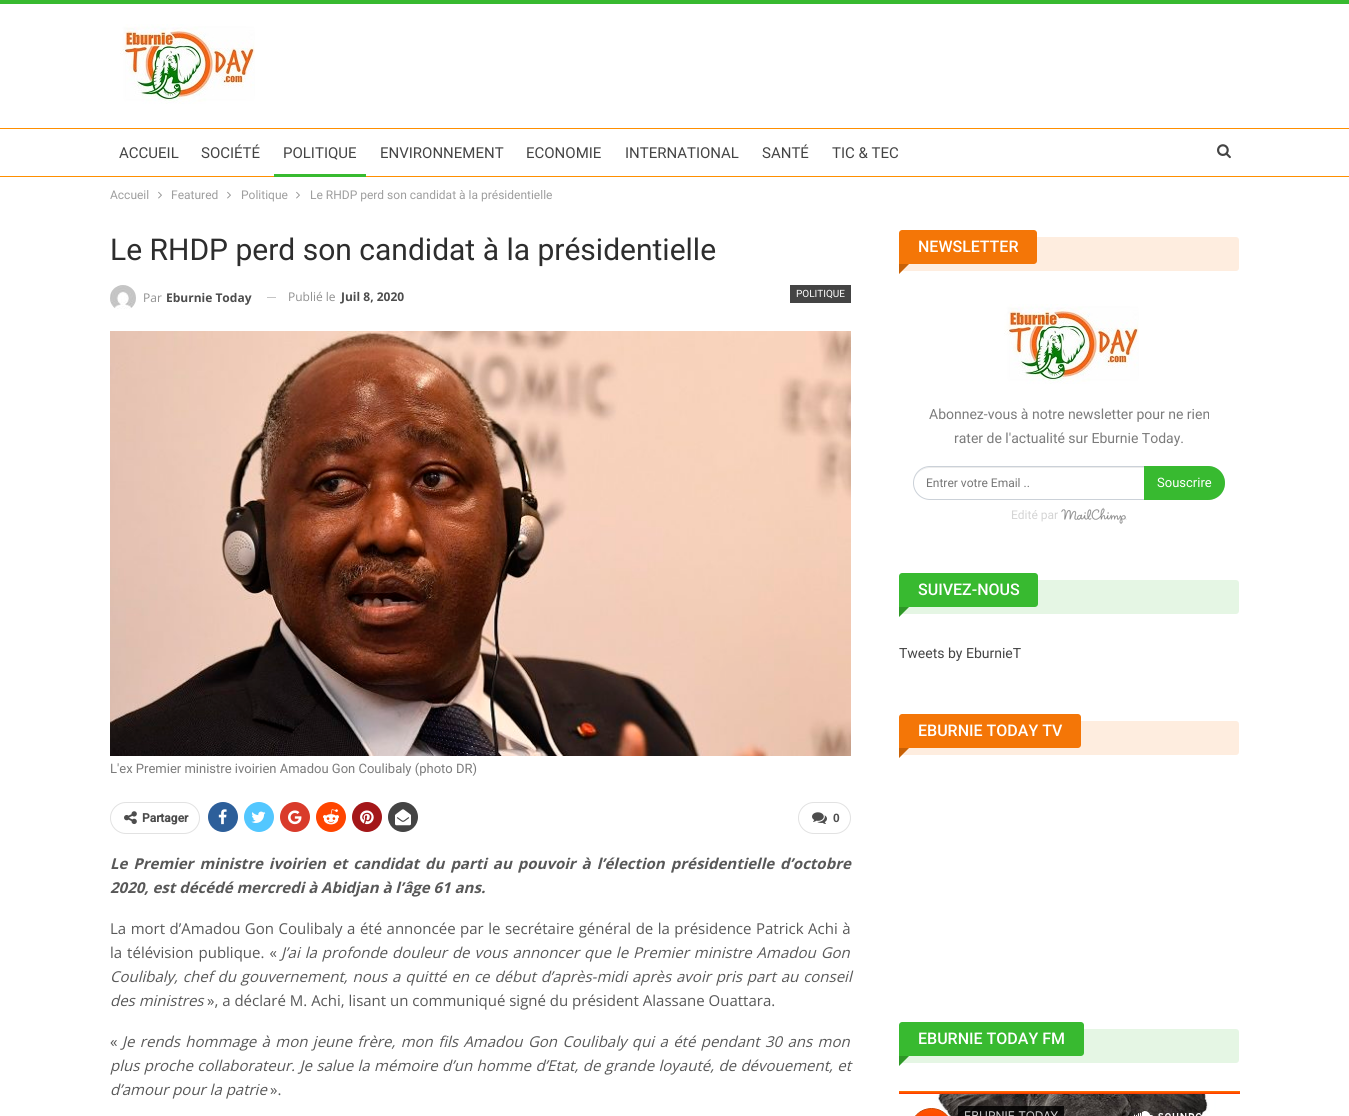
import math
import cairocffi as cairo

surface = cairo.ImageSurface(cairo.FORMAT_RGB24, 1349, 1116)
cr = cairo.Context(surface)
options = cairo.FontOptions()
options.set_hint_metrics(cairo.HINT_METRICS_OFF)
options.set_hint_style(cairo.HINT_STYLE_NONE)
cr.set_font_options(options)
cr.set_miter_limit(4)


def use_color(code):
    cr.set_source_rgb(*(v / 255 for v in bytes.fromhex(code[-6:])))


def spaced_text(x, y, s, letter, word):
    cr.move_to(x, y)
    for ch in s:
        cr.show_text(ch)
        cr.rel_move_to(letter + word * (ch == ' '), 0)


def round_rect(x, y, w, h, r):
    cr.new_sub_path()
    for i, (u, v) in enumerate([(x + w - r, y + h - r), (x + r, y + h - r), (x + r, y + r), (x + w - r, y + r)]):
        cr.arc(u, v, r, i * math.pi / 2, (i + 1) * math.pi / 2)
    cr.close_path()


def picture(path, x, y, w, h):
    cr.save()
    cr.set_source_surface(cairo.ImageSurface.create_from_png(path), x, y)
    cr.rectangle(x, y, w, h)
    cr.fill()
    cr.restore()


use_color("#ffffff")
cr.paint()
use_color("#38ba30")
cr.rectangle(0, 0, 1349, 4)
cr.fill()
picture("img1.png", 120, 24, 135, 80)
use_color("#ff8f00")
cr.rectangle(0, 128, 1349, 1)
cr.fill()
cr.rectangle(0, 176, 1349, 1)
cr.fill()
cr.select_font_face("Roboto")
cr.set_font_size(15)
use_color("#444444")
cr.move_to(119, 158)
cr.show_text("ACCUEIL")
cr.move_to(201, 158)
cr.show_text("SOCIÉTÉ")
cr.move_to(283, 158)
cr.show_text("POLITIQUE")
use_color("#38ba30")
cr.rectangle(274, 174, 92, 3)
cr.fill()
use_color("#444444")
cr.move_to(380, 158)
cr.show_text("ENVIRONNEMENT")
cr.move_to(526, 158)
cr.show_text("ECONOMIE")
cr.move_to(625, 158)
cr.show_text("INTERNATIONAL")
cr.move_to(762, 158)
cr.show_text("SANTÉ")
cr.move_to(832, 158)
cr.show_text("TIC & TEC")
picture("img2.png", 1217, 144, 14, 15)
cr.set_font_size(12)
use_color("#9e9e9e")
cr.move_to(110, 199)
cr.show_text("Accueil")
picture("img3.png", 158, 191, 4, 8)
cr.move_to(171, 199)
cr.show_text("Featured")
picture("img3.png", 227, 191, 4, 8)
cr.move_to(241, 199)
cr.show_text("Politique")
picture("img3.png", 296, 191, 4, 8)
cr.move_to(310, 199)
cr.show_text("Le RHDP perd son candidat à la présidentielle")
cr.set_font_size(30)
use_color("#2d2d2d")
cr.move_to(110, 260)
cr.show_text("Le RHDP perd son candidat à la présidentielle")
picture("img4.png", 110, 285, 26, 24)
cr.select_font_face("Open Sans")
cr.set_font_size(12)
use_color("#8f8f8f")
cr.move_to(143, 302)
cr.show_text("Par")
cr.select_font_face("Open Sans", cairo.FONT_SLANT_NORMAL, cairo.FONT_WEIGHT_BOLD)
use_color("#4d4d4d")
cr.move_to(166, 302)
cr.show_text("Eburnie Today")
use_color("#c4c4c4")
cr.rectangle(267, 297, 9, 1)
cr.fill()
cr.select_font_face("Open Sans")
use_color("#8f8f8f")
cr.move_to(288, 301)
cr.show_text("Publié le")
cr.select_font_face("Open Sans", cairo.FONT_SLANT_NORMAL, cairo.FONT_WEIGHT_BOLD)
use_color("#4d4d4d")
cr.move_to(341, 301)
cr.show_text("Juil 8, 2020")
use_color("#444444")
cr.rectangle(790, 285, 61, 18)
cr.fill()
cr.select_font_face("Roboto")
cr.set_font_size(10)
use_color("#ffffff")
cr.move_to(796, 297)
cr.show_text("POLITIQUE")
picture("img5.png", 110, 331, 741, 425)
cr.set_font_size(13)
use_color("#7b7b7b")
cr.move_to(110, 773)
cr.show_text("L'ex Premier ministre ivoirien Amadou Gon Coulibaly (photo DR)")
round_rect(110.5, 802.5, 89, 31, 15.5)
use_color("#e2e2e2")
cr.set_line_width(1)
cr.stroke()
picture("img6.png", 124, 811, 13, 14)
cr.select_font_face("Roboto", cairo.FONT_SLANT_NORMAL, cairo.FONT_WEIGHT_BOLD)
cr.set_font_size(12)
use_color("#4d4d4d")
cr.move_to(142, 822)
cr.show_text("Partager")
use_color("#2d5f9a")
cr.new_path()
cr.arc(223, 817, 15, 0, 2 * math.pi)
cr.fill()
picture("img7.png", 218, 809, 9, 16)
use_color("#53c7ff")
cr.arc(259, 817, 15, 0, 2 * math.pi)
cr.fill()
picture("img8.png", 251, 811, 15, 12)
use_color("#d93b2b")
cr.arc(295, 817, 15, 0, 2 * math.pi)
cr.fill()
picture("img9.png", 288, 810, 14, 15)
use_color("#ff4500")
cr.arc(331, 817, 15, 0, 2 * math.pi)
cr.fill()
picture("img10.png", 323, 809, 16, 16)
use_color("#a41719")
cr.arc(367, 817, 15, 0, 2 * math.pi)
cr.fill()
picture("img11.png", 360, 810, 14, 15)
use_color("#444444")
cr.arc(403, 817, 15, 0, 2 * math.pi)
cr.fill()
picture("img12.png", 395, 809, 16, 17)
round_rect(798.5, 802.5, 52, 31, 15.5)
use_color("#e2e2e2")
cr.stroke()
picture("img13.png", 812, 812, 15, 12)
cr.select_font_face("Liberation Sans", cairo.FONT_SLANT_NORMAL, cairo.FONT_WEIGHT_BOLD)
use_color("#4d4d4d")
cr.move_to(833, 822)
cr.show_text("0")
cr.select_font_face("Open Sans", cairo.FONT_SLANT_ITALIC, cairo.FONT_WEIGHT_BOLD)
cr.set_font_size(15)
use_color("#585858")
spaced_text(110, 869, "Le Premier ministre ivoirien et candidat du parti au pouvoir à l’élection présidentielle d’octobre", 0, 2.1)
cr.move_to(110, 893)
cr.show_text("2020, est décédé mercredi à Abidjan à l’âge 61 ans.")
cr.select_font_face("Open Sans")
spaced_text(110, 934, "La mort d’Amadou Gon Coulibaly a été annoncée par le secrétaire général de la présidence Patrick Achi à", 0, 0.6)
spaced_text(110, 958, "la télévision publique. «", 0, 1.1)
cr.select_font_face("Open Sans", cairo.FONT_SLANT_ITALIC)
spaced_text(281, 958, "J’ai la profonde douleur de vous annoncer que le Premier ministre Amadou Gon", 0, 1.1)
spaced_text(110, 982, "Coulibaly, chef du gouvernement, nous a quitté en ce début d’après-midi après avoir pris part au conseil", 0, 1)
cr.move_to(110, 1006)
cr.show_text("des ministres")
cr.select_font_face("Open Sans")
cr.move_to(207, 1006)
cr.show_text("», a déclaré M. Achi, lisant un communiqué signé du président Alassane Ouattara.")
cr.move_to(110, 1047)
cr.show_text("«")
cr.select_font_face("Open Sans", cairo.FONT_SLANT_ITALIC)
spaced_text(122, 1047, "Je rends hommage à mon jeune frère, mon fils Amadou Gon Coulibaly qui a été pendant 30 ans mon", 0, 1.5)
spaced_text(110, 1071, "plus proche collaborateur. Je salue la mémoire d’un homme d’Etat, de grande loyauté, de dévouement, et", 0, 0.5)
cr.move_to(110, 1095)
cr.show_text("d’amour pour la patrie")
cr.select_font_face("Open Sans")
cr.move_to(270, 1095)
cr.show_text("».")
use_color("#feeddf")
round_rect(899, 237, 340, 34, 3)
cr.fill()
use_color("#f47607")
cr.new_path()
cr.move_to(902, 230)
cr.line_to(1034, 230)
cr.curve_to(1035.5, 230, 1037, 231.5, 1037, 233)
cr.line_to(1037, 261)
cr.curve_to(1037, 262.5, 1035.5, 264, 1034, 264)
cr.line_to(899, 264)
cr.line_to(899, 233)
cr.curve_to(899, 231.5, 900.5, 230, 902, 230)
cr.close_path()
cr.fill()
cr.select_font_face("Roboto Medium")
cr.set_font_size(16)
use_color("#ffffff")
cr.move_to(918, 252)
cr.show_text("NEWSLETTER")
use_color("#f47607")
cr.new_path()
cr.move_to(899, 264)
cr.line_to(909, 264)
cr.line_to(899, 274)
cr.close_path()
cr.fill()
cr.set_source_rgba(0, 0, 0, 0.18)
cr.new_path()
cr.move_to(899, 264)
cr.line_to(909, 264)
cr.line_to(899, 274)
cr.close_path()
cr.fill()
picture("img1.png", 1004, 304, 135, 80)
cr.select_font_face("Roboto")
cr.set_font_size(14)
use_color("#7b7b7b")
cr.move_to(929, 419)
cr.show_text("Abonnez-vous à notre newsletter pour ne rien")
cr.move_to(954, 443)
cr.show_text("rater de l'actualité sur Eburnie Today.")
use_color("#ececec")
cr.new_path()
cr.move_to(930, 468)
cr.line_to(1208, 468)
cr.curve_to(1217, 468, 1224, 475, 1224, 483)
cr.curve_to(1224, 475, 1217, 467, 1208, 467)
cr.line_to(930, 467)
cr.curve_to(921, 467, 914, 475, 914, 483)
cr.curve_to(914, 475, 921, 468, 930, 468)
cr.close_path()
cr.fill()
round_rect(913.5, 466.5, 311, 33, 16.5)
use_color("#cbd1d8")
cr.stroke()
cr.set_font_size(12)
use_color("#757575")
cr.move_to(926, 487)
cr.show_text("Entrer votre Email ..")
use_color("#38ba30")
cr.new_path()
cr.move_to(1144, 466)
cr.line_to(1208, 466)
cr.curve_to(1217.5, 466, 1225, 473.5, 1225, 483)
cr.curve_to(1225, 492.5, 1217.5, 500, 1208, 500)
cr.line_to(1144, 500)
cr.close_path()
cr.fill()
cr.set_font_size(13)
use_color("#ffffff")
cr.move_to(1157, 487)
cr.show_text("Souscrire")
cr.set_font_size(12)
use_color("#d4d4d4")
cr.move_to(1011, 519)
cr.show_text("Edité par")
picture("img14.png", 1061, 507, 66, 17)
use_color("#e5f6e4")
round_rect(899, 580, 340, 34, 3)
cr.fill()
use_color("#38ba30")
cr.new_path()
cr.move_to(902, 573)
cr.line_to(1035, 573)
cr.curve_to(1036.5, 573, 1038, 574.5, 1038, 576)
cr.line_to(1038, 604)
cr.curve_to(1038, 605.5, 1036.5, 607, 1035, 607)
cr.line_to(899, 607)
cr.line_to(899, 576)
cr.curve_to(899, 574.5, 900.5, 573, 902, 573)
cr.close_path()
cr.fill()
cr.select_font_face("Roboto Medium")
cr.set_font_size(16)
use_color("#ffffff")
cr.move_to(918, 595)
cr.show_text("SUIVEZ-NOUS")
use_color("#38ba30")
cr.new_path()
cr.move_to(899, 607)
cr.line_to(909, 607)
cr.line_to(899, 617)
cr.close_path()
cr.fill()
cr.set_source_rgba(0, 0, 0, 0.18)
cr.new_path()
cr.move_to(899, 607)
cr.line_to(909, 607)
cr.line_to(899, 617)
cr.close_path()
cr.fill()
cr.select_font_face("Roboto")
cr.set_font_size(14)
use_color("#444444")
cr.move_to(899, 658)
cr.show_text("Tweets by EburnieT")
use_color("#feeddf")
round_rect(899, 721, 340, 34, 3)
cr.fill()
use_color("#f47607")
cr.new_path()
cr.move_to(902, 714)
cr.line_to(1078, 714)
cr.curve_to(1079.5, 714, 1081, 715.5, 1081, 717)
cr.line_to(1081, 745)
cr.curve_to(1081, 746.5, 1079.5, 748, 1078, 748)
cr.line_to(899, 748)
cr.line_to(899, 717)
cr.curve_to(899, 715.5, 900.5, 714, 902, 714)
cr.close_path()
cr.fill()
cr.select_font_face("Roboto Medium")
cr.set_font_size(16)
use_color("#ffffff")
cr.move_to(918, 736)
cr.show_text("EBURNIE TODAY TV")
use_color("#f47607")
cr.new_path()
cr.move_to(899, 748)
cr.line_to(909, 748)
cr.line_to(899, 758)
cr.close_path()
cr.fill()
cr.set_source_rgba(0, 0, 0, 0.18)
cr.new_path()
cr.move_to(899, 748)
cr.line_to(909, 748)
cr.line_to(899, 758)
cr.close_path()
cr.fill()
use_color("#e5f6e4")
round_rect(899, 1029, 340, 34, 3)
cr.fill()
use_color("#38ba30")
cr.new_path()
cr.move_to(902, 1022)
cr.line_to(1081, 1022)
cr.curve_to(1082.5, 1022, 1084, 1023.5, 1084, 1025)
cr.line_to(1084, 1053)
cr.curve_to(1084, 1054.5, 1082.5, 1056, 1081, 1056)
cr.line_to(899, 1056)
cr.line_to(899, 1025)
cr.curve_to(899, 1023.5, 900.5, 1022, 902, 1022)
cr.close_path()
cr.fill()
use_color("#ffffff")
cr.move_to(918, 1044)
cr.show_text("EBURNIE TODAY FM")
use_color("#38ba30")
cr.new_path()
cr.move_to(899, 1056)
cr.line_to(909, 1056)
cr.line_to(899, 1066)
cr.close_path()
cr.fill()
cr.set_source_rgba(0, 0, 0, 0.18)
cr.new_path()
cr.move_to(899, 1056)
cr.line_to(909, 1056)
cr.line_to(899, 1066)
cr.close_path()
cr.fill()
picture("img15.png", 899, 1091, 341, 25)
surface.write_to_png("result.png")
